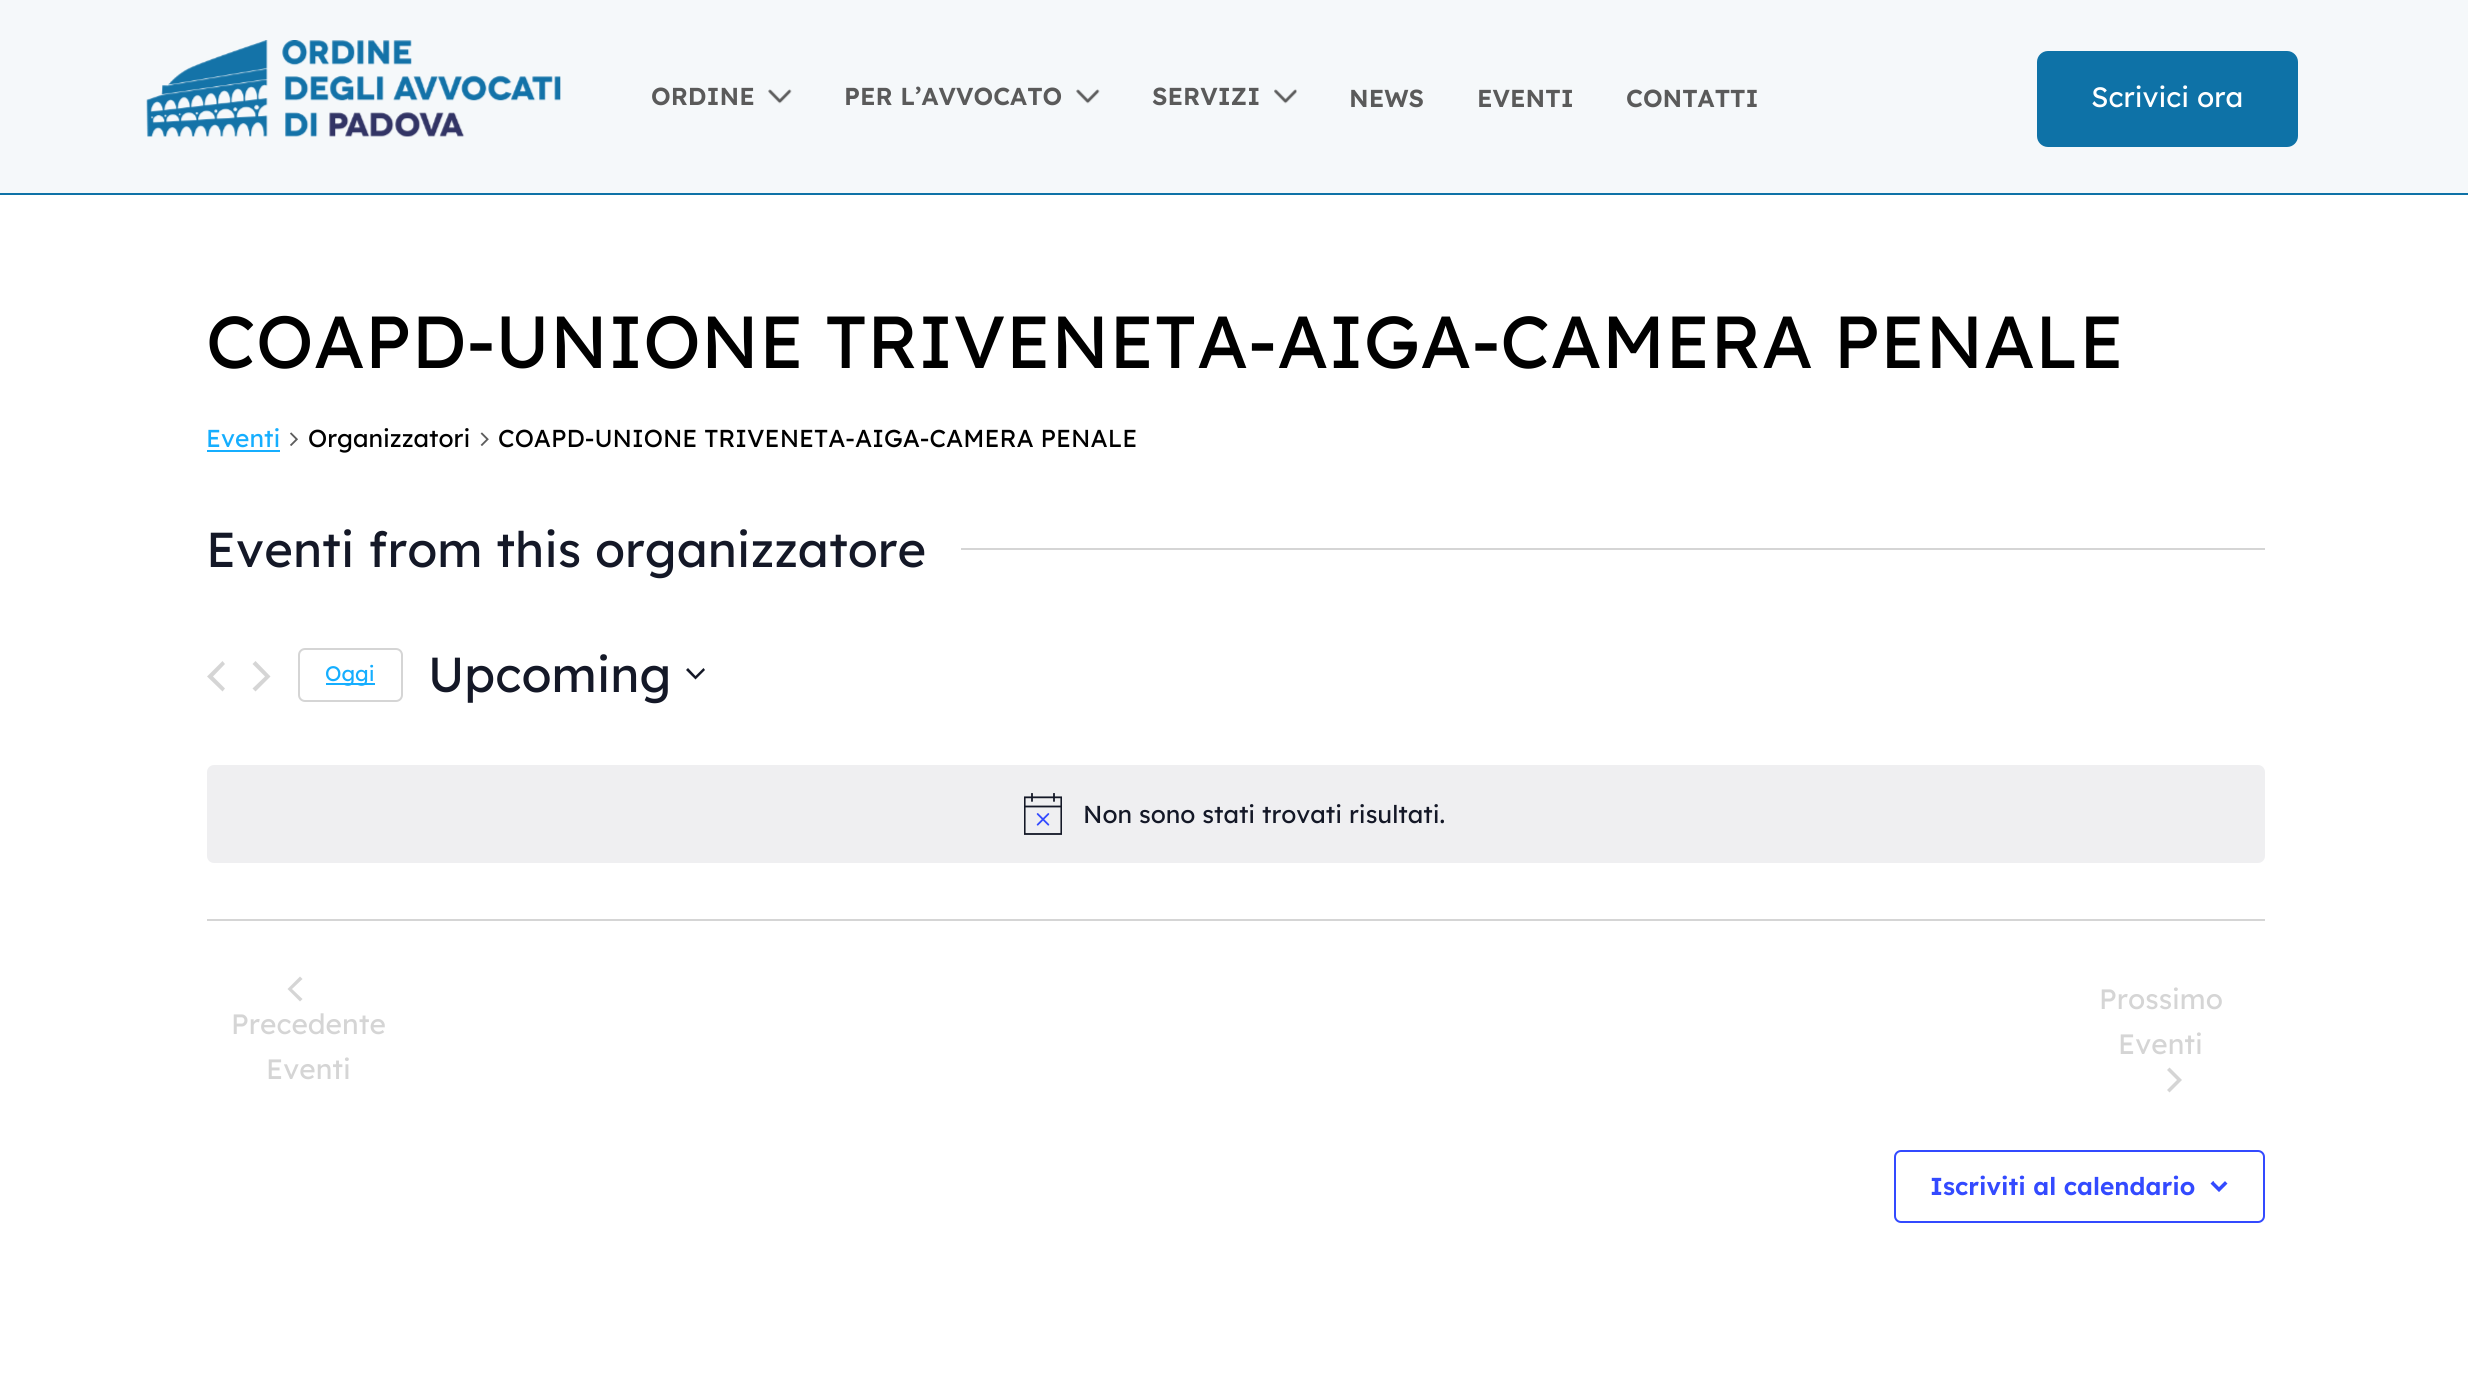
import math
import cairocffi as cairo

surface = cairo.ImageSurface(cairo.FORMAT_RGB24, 2468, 1377)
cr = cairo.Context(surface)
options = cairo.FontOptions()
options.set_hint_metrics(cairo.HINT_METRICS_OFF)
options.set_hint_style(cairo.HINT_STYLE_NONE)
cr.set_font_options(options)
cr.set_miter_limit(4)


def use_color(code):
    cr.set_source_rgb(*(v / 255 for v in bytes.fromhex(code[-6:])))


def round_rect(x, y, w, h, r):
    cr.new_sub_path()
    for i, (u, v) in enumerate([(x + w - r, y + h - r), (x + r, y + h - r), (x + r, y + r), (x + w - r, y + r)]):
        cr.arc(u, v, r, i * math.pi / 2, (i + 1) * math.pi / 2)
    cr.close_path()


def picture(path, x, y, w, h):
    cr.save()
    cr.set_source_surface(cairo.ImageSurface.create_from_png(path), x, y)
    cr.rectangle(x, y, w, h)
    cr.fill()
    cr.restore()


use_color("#ffffff")
cr.paint()
use_color("#f5f8fa")
cr.rectangle(0, 0, 2468, 193)
cr.fill()
use_color("#0e72a7")
cr.rectangle(0, 193, 2468, 2)
cr.fill()
picture("img1.png", 146, 40, 415, 97)
cr.select_font_face("Lexend SemiBold")
cr.set_font_size(24.5)
use_color("#5a5a5a")
cr.move_to(651, 105)
cr.show_text("ORDINE")
picture("img2.png", 768, 89, 24, 15)
cr.move_to(844, 105)
cr.show_text("PER L’AVVOCATO")
picture("img2.png", 1076, 89, 24, 15)
cr.move_to(1152, 105)
cr.show_text("SERVIZI")
picture("img3.png", 1274, 89, 23, 15)
cr.move_to(1349, 107)
cr.show_text("NEWS")
cr.move_to(1477, 107)
cr.show_text("EVENTI")
cr.move_to(1626, 107)
cr.show_text("CONTATTI")
use_color("#0e72a7")
round_rect(2038, 52, 259, 94, 10)
cr.fill_preserve()
cr.stroke()
cr.select_font_face("Lexend")
cr.set_font_size(28)
use_color("#ffffff")
cr.move_to(2091, 107)
cr.show_text("Scrivici ora")
cr.set_font_size(73.5)
use_color("#000000")
cr.move_to(206, 368)
cr.show_text("COAPD-UNIONE TRIVENETA-AIGA-CAMERA PENALE")
cr.set_font_size(24.5)
use_color("#15aeff")
cr.move_to(206, 447)
cr.show_text("Eventi")
cr.rectangle(207, 450, 73, 2)
cr.fill()
picture("img4.png", 290, 432, 8, 14)
use_color("#000000")
cr.move_to(308, 447)
cr.show_text("Organizzatori")
picture("img5.png", 480, 432, 9, 14)
cr.move_to(498, 447)
cr.show_text("COAPD-UNIONE TRIVENETA-AIGA-CAMERA PENALE")
cr.set_font_size(49)
use_color("#141827")
cr.move_to(206, 567)
cr.show_text("Eventi from this organizzatore")
use_color("#d5d5d5")
cr.rectangle(961, 548, 1304, 2)
cr.fill()
cr.new_path()
cr.move_to(225, 688.5)
cr.line_to(222.5, 691.5)
cr.line_to(207, 676.5)
cr.line_to(222.5, 661)
cr.line_to(225, 664)
cr.line_to(213, 676.5)
cr.close_path()
cr.fill()
cr.new_path()
cr.move_to(252.5, 664)
cr.line_to(255.5, 661)
cr.line_to(270.5, 676.5)
cr.line_to(255.5, 691.5)
cr.line_to(252.5, 688.5)
cr.line_to(265, 676.5)
cr.close_path()
cr.fill()
round_rect(299, 649, 103, 52, 6)
cr.stroke()
use_color("#15aeff")
cr.rectangle(326, 683, 49, 2)
cr.fill()
cr.set_font_size(21)
cr.move_to(325, 681)
cr.show_text("Oggi")
cr.set_font_size(49)
use_color("#141827")
cr.move_to(428, 692)
cr.show_text("Upcoming")
cr.set_fill_rule(cairo.FILL_RULE_EVEN_ODD)
cr.new_path()
cr.move_to(688, 668)
cr.line_to(695.5, 676)
cr.line_to(703.5, 668)
cr.line_to(705, 670)
cr.line_to(695.5, 679.5)
cr.line_to(686, 670)
cr.close_path()
cr.fill()
use_color("#efeff1")
round_rect(207, 765, 2058, 98, 7)
cr.fill()
picture("img6.png", 1024, 793, 38, 42)
cr.set_font_size(24.5)
use_color("#141827")
cr.move_to(1083, 823)
cr.show_text("Non sono stati trovati risultati.")
use_color("#d5d5d5")
cr.rectangle(207, 919, 2058, 2)
cr.fill()
cr.set_fill_rule(cairo.FILL_RULE_WINDING)
cr.new_path()
cr.move_to(302.5, 999)
cr.line_to(300, 1001.5)
cr.line_to(287.5, 989)
cr.line_to(300, 976.5)
cr.line_to(302.5, 979)
cr.line_to(292, 989)
cr.close_path()
cr.fill()
cr.set_font_size(28)
cr.move_to(231, 1034)
cr.show_text("Precedente")
cr.move_to(266, 1079)
cr.show_text("Eventi")
cr.move_to(2099, 1009)
cr.show_text("Prossimo")
cr.move_to(2118, 1054)
cr.show_text("Eventi")
cr.new_path()
cr.move_to(2167, 1070)
cr.line_to(2169.5, 1067.5)
cr.line_to(2182, 1080)
cr.line_to(2169.5, 1092.5)
cr.line_to(2167, 1090)
cr.line_to(2177, 1080)
cr.close_path()
cr.fill()
round_rect(1895, 1151, 369, 71, 6)
use_color("#334aff")
cr.stroke()
cr.select_font_face("Lexend SemiBold")
cr.set_font_size(24.5)
cr.move_to(1930, 1195)
cr.show_text("Iscriviti al calendario")
picture("img7.png", 2210, 1181, 18, 11)
surface.write_to_png("result.png")
